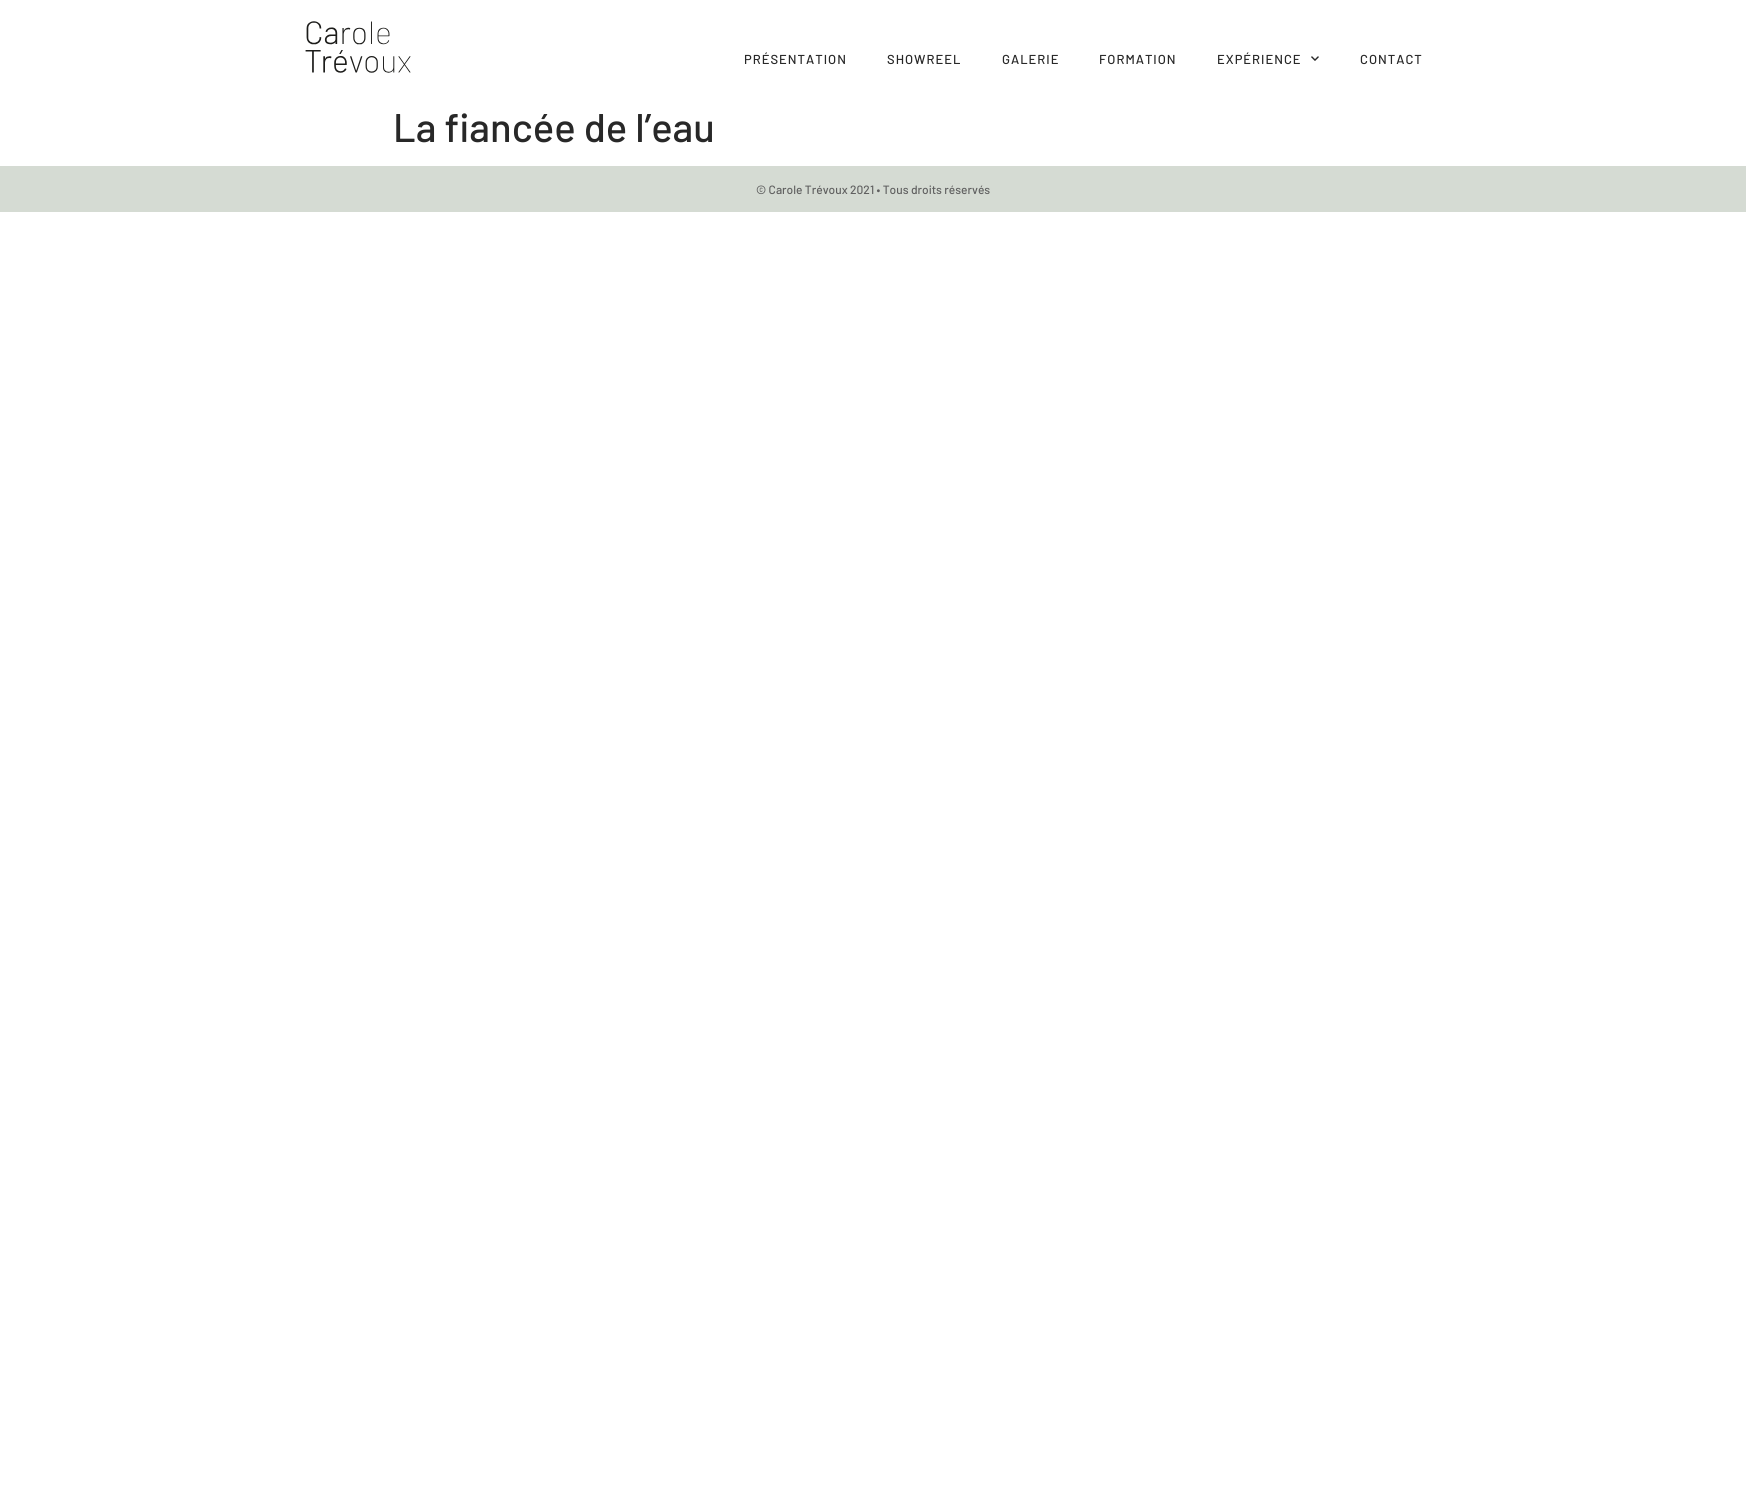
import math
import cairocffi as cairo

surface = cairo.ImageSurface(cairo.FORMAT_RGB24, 1746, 1489)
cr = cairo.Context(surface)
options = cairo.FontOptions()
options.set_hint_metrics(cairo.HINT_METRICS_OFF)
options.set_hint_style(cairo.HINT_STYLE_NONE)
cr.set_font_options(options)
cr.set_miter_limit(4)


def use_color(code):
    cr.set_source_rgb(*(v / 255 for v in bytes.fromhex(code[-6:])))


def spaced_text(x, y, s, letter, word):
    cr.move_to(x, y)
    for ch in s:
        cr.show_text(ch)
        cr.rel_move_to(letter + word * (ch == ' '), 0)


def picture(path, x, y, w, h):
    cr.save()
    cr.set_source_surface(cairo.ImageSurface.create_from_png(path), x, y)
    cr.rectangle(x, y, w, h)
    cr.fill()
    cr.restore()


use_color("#ffffff")
cr.paint()
picture("img1.png", 305, 21, 106, 52)
cr.select_font_face("Barlow Medium")
cr.set_font_size(13)
use_color("#282828")
spaced_text(744, 64, "PRÉSENTATION", 1, 0)
spaced_text(887, 64, "SHOWREEL", 1, 0)
spaced_text(1002, 64, "GALERIE", 1, 0)
spaced_text(1099, 64, "FORMATION", 1, 0)
spaced_text(1217, 64, "EXPÉRIENCE", 1, 0)
picture("img2.png", 1311, 56, 8, 5)
spaced_text(1360, 64, "CONTACT", 1, 0)
cr.set_font_size(40)
cr.move_to(393, 142)
cr.show_text("La fiancée de l’eau")
use_color("#d5dbd3")
cr.rectangle(0, 166, 1746, 46)
cr.fill()
cr.set_font_size(12)
use_color("#606060")
cr.move_to(756, 194)
cr.show_text("© Carole Trévoux 2021 • Tous droits réservés")
surface.write_to_png("result.png")
